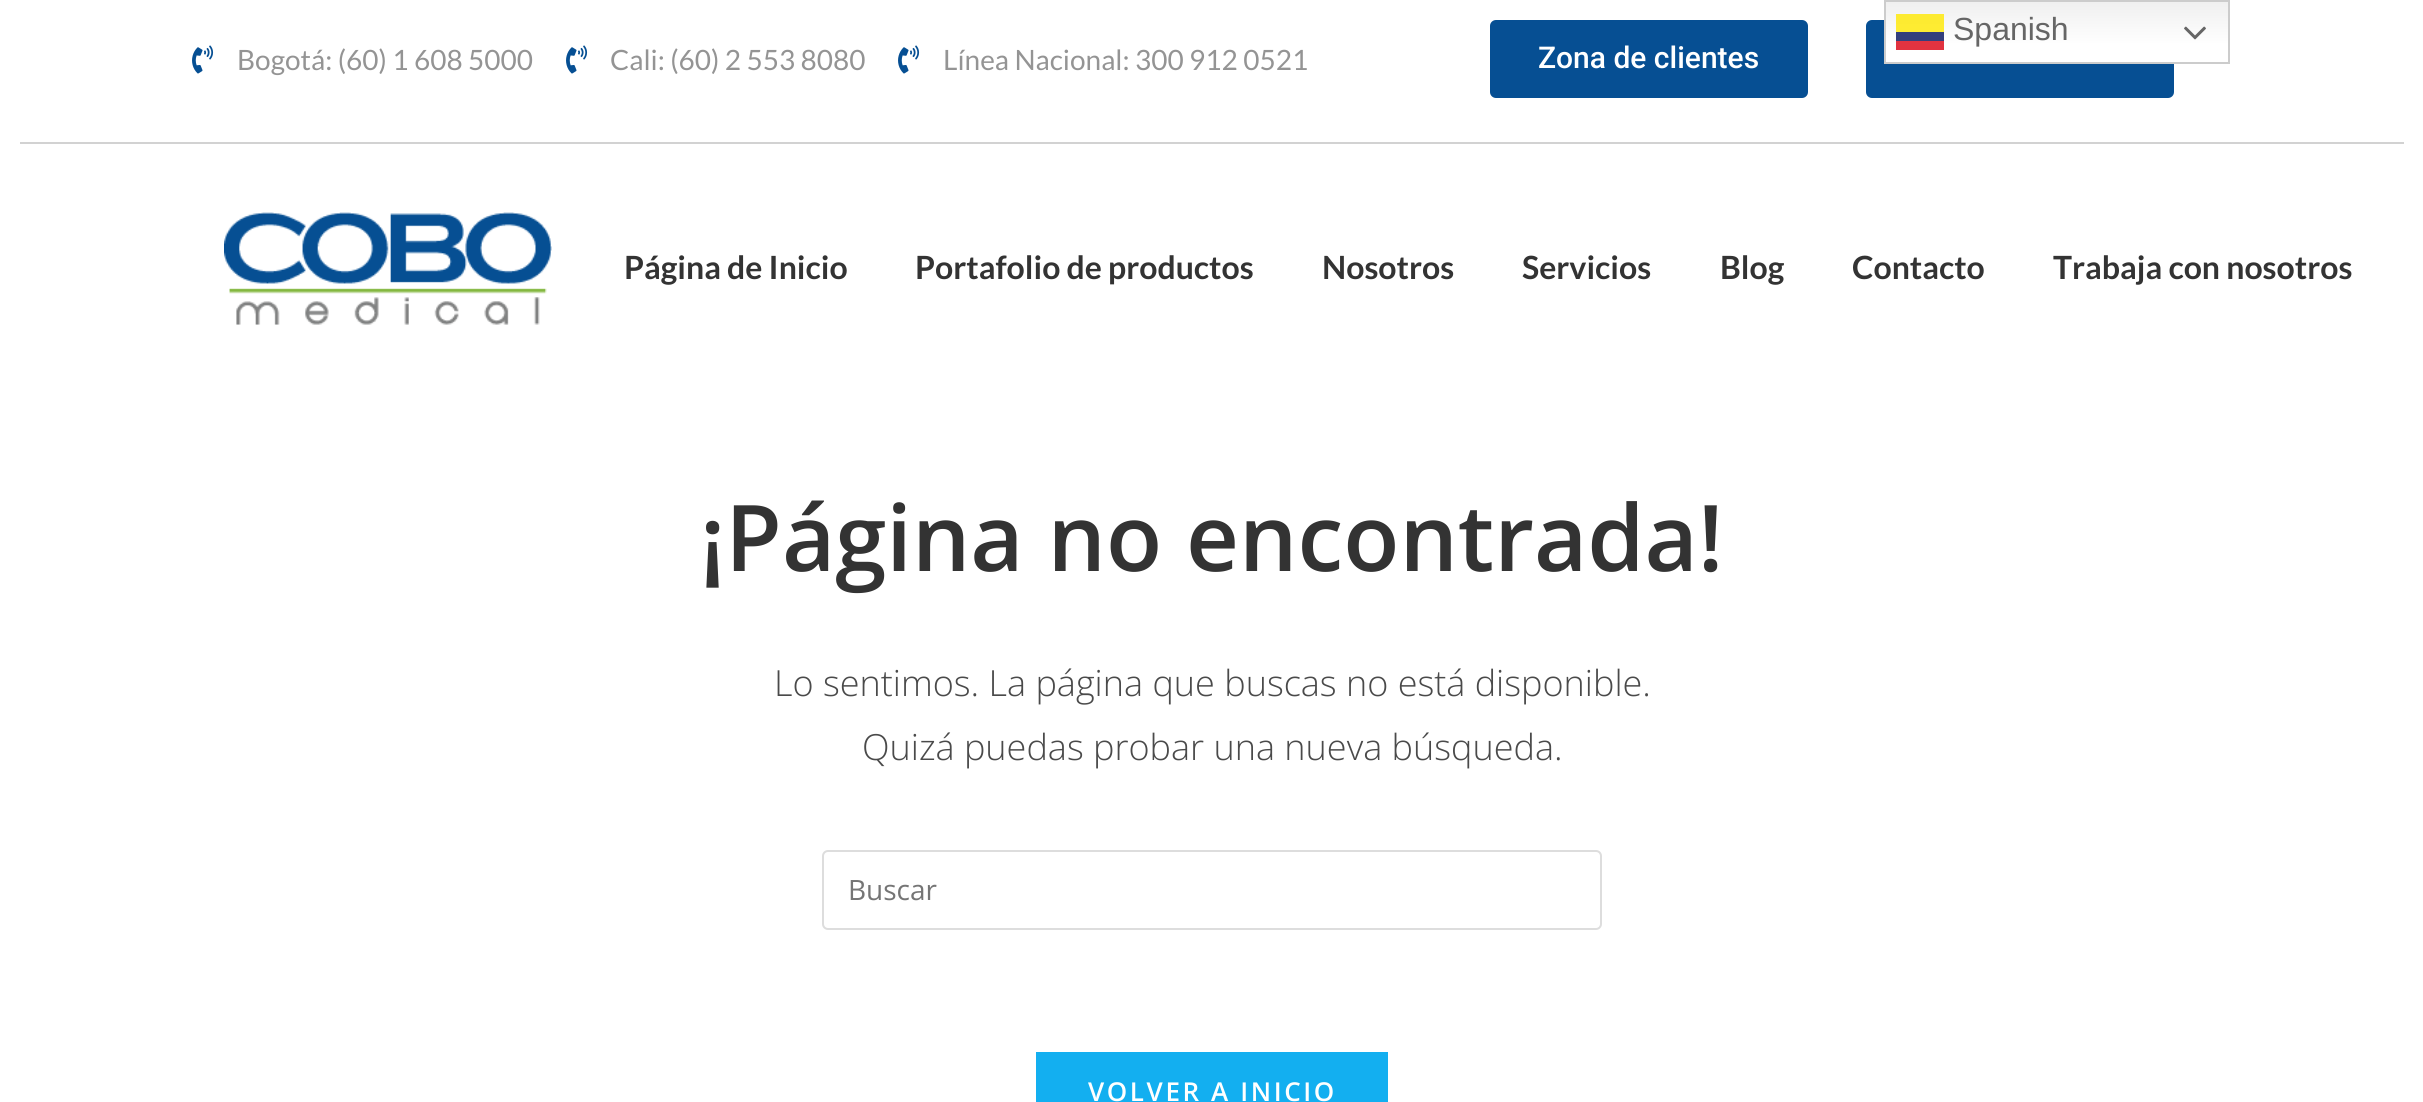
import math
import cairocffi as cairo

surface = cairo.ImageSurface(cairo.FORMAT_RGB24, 2423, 1102)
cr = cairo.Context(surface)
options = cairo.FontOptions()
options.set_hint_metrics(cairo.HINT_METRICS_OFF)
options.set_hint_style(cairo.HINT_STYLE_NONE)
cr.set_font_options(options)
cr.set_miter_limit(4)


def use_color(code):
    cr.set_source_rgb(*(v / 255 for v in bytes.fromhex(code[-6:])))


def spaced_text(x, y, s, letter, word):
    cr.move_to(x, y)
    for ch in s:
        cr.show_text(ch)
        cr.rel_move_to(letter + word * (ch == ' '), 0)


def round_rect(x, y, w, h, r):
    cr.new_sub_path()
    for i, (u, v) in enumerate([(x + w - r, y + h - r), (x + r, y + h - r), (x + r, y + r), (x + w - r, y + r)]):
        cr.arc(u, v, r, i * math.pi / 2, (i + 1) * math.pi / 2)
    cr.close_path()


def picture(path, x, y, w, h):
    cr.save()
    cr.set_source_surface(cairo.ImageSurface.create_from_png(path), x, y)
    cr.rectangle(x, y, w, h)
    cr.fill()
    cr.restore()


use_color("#ffffff")
cr.paint()
use_color("#064f93")
round_rect(1866, 20, 308, 78, 6)
cr.fill()
gradient = cairo.LinearGradient(2057, 0, 2057, 64)
gradient.add_color_stop_rgba(0, 0.937, 0.937, 0.937, 1)
gradient.add_color_stop_rgba(0.7, 1, 1, 1, 1)
cr.set_source(gradient)
cr.rectangle(1886, 2, 342, 60)
cr.fill()
cr.rectangle(1885, 1, 344, 62)
use_color("#cccccc")
cr.stroke()
cr.set_source_rgba(1, 0.91, 0, 0.8)
cr.rectangle(1896, 14, 48, 18)
cr.fill()
cr.select_font_face("Liberation Sans")
cr.set_font_size(32)
use_color("#666666")
cr.move_to(1953, 40)
cr.show_text("Spanish")
picture("img1.png", 2184, 26, 22, 14)
use_color("#333f7c")
cr.rectangle(1896, 32, 48, 9)
cr.fill()
use_color("#e13340")
cr.rectangle(1896, 41, 48, 9)
cr.fill()
picture("img2.png", 192, 45, 22, 29)
cr.select_font_face("Lato")
cr.set_font_size(28)
use_color("#949494")
cr.move_to(237, 70)
cr.show_text("Bogotá: (60) 1 608 5000")
picture("img2.png", 566, 45, 22, 29)
cr.move_to(610, 70)
cr.show_text("Cali: (60) 2 553 8080")
picture("img2.png", 898, 45, 22, 29)
cr.move_to(943, 70)
cr.show_text("Línea Nacional: 300 912 0521")
use_color("#064f93")
round_rect(1490, 20, 318, 78, 6)
cr.fill()
cr.select_font_face("Roboto Medium")
cr.set_font_size(30)
use_color("#ffffff")
cr.move_to(1538, 68)
cr.show_text("Zona de clientes")
use_color("#d2d2d2")
cr.rectangle(20, 142, 2384, 2)
cr.fill()
picture("img3.png", 224, 212, 328, 113)
cr.select_font_face("Lato", cairo.FONT_SLANT_NORMAL, cairo.FONT_WEIGHT_BOLD)
cr.set_font_size(32)
use_color("#333333")
cr.move_to(624, 279)
cr.show_text("Página de Inicio")
cr.move_to(915, 279)
cr.show_text("Portafolio de productos")
cr.move_to(1322, 279)
cr.show_text("Nosotros")
cr.move_to(1522, 279)
cr.show_text("Servicios")
cr.move_to(1720, 279)
cr.show_text("Blog")
cr.move_to(1852, 279)
cr.show_text("Contacto")
cr.move_to(2053, 279)
cr.show_text("Trabaja con nosotros")
cr.select_font_face("Open Sans SemiBold")
cr.set_font_size(92)
cr.move_to(700, 571)
cr.show_text("¡Página no encontrada!")
cr.select_font_face("Open Sans Light")
cr.set_font_size(36)
use_color("#4a4a4a")
cr.move_to(774, 696)
cr.show_text("Lo sentimos. La página que buscas no está disponible.")
cr.move_to(862, 760)
cr.show_text("Quizá puedas probar una nueva búsqueda.")
round_rect(823, 851, 778, 78, 5)
use_color("#dddddd")
cr.stroke()
cr.select_font_face("Open Sans")
cr.set_font_size(28)
use_color("#757575")
cr.move_to(848, 900)
cr.show_text("Buscar")
use_color("#13aff0")
cr.rectangle(1036, 1052, 352, 50)
cr.fill()
cr.select_font_face("Open Sans SemiBold")
cr.set_font_size(26)
use_color("#ffffff")
spaced_text(1088, 1101, "VOLVER A INICIO", 2.6, 0)
surface.write_to_png("result.png")
